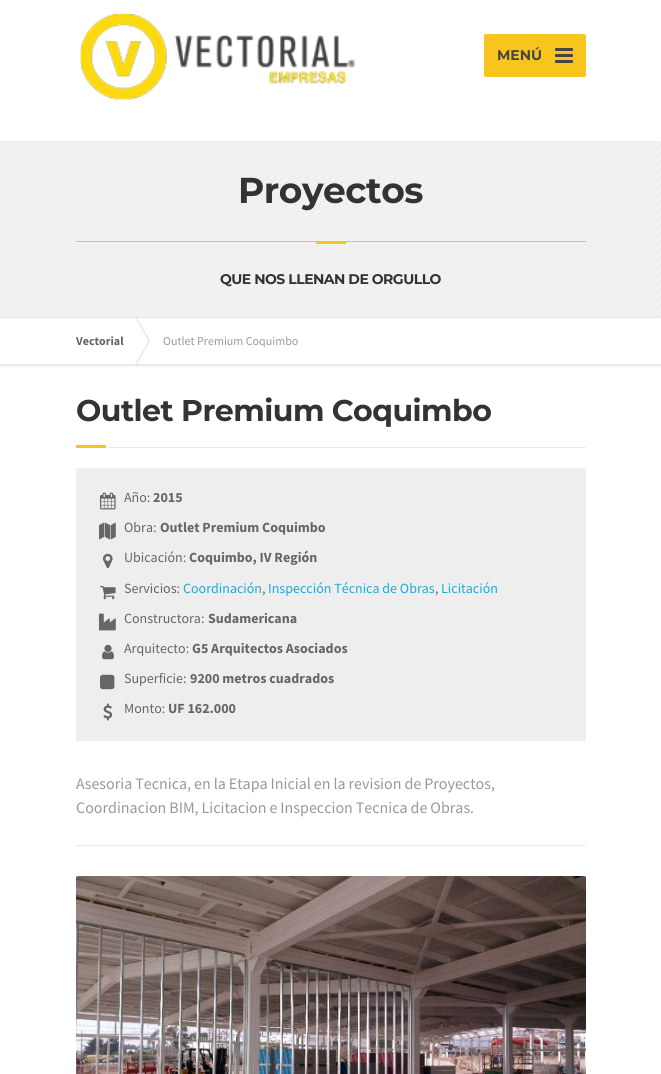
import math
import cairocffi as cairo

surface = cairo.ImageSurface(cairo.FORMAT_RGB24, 661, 1074)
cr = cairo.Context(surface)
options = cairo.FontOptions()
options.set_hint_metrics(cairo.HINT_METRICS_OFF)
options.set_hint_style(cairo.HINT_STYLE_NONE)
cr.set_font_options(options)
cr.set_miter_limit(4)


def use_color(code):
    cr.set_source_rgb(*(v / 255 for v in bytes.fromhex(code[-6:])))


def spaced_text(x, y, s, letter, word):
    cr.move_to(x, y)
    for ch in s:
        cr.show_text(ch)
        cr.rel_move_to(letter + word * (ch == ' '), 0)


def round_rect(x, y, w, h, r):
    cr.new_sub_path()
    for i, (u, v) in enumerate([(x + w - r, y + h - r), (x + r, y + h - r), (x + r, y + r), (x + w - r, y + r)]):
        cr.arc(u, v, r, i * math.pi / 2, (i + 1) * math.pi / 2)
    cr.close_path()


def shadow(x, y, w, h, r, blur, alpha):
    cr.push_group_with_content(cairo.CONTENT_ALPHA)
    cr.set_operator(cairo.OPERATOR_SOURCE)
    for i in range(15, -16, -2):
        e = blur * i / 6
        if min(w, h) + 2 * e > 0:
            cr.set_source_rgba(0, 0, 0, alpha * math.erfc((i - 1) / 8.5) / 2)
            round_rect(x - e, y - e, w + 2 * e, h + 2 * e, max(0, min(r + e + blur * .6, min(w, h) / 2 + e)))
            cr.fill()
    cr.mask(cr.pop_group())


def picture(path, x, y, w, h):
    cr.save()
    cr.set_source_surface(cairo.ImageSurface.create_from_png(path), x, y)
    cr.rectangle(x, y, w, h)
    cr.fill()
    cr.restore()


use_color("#ffffff")
cr.paint()
picture("img1.png", 79, 12, 276, 88)
use_color("#f7c51e")
round_rect(484, 34, 102, 43, 2)
cr.fill()
cr.select_font_face("Montserrat", cairo.FONT_SLANT_NORMAL, cairo.FONT_WEIGHT_BOLD)
cr.set_font_size(14)
use_color("#454545")
cr.move_to(497, 60)
cr.show_text("MENÚ")
round_rect(555, 48, 18, 3, 1)
cr.fill()
round_rect(555, 54, 18, 3, 1)
cr.fill()
round_rect(555, 60, 18, 3, 1)
cr.fill()
use_color("#f2f2f2")
cr.rectangle(0, 141, 661, 176)
cr.fill()
picture("img2.png", 0, 141, 661, 176)
use_color("#e6e6e6")
cr.rectangle(0, 317, 661, 1)
cr.fill()
cr.set_font_size(36)
use_color("#333333")
spaced_text(238, 203, "Proyectos", -0.5, 0)
cr.set_source_rgba(0, 0, 0, 0.2)
cr.rectangle(76, 241, 510, 1)
cr.fill()
use_color("#f7c51e")
cr.rectangle(316, 241, 30, 3)
cr.fill()
cr.set_font_size(14)
use_color("#333333")
spaced_text(220, 284, "QUE NOS LLENAN DE ORGULLO", -0.5, 0)
cr.save()
cr.rectangle(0, 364, 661, 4)
cr.clip()
use_color("#e6e6e6")
shadow(0, 320, 661, 46, 0, 1, 1)
cr.restore()
cr.select_font_face("Source Sans Pro", cairo.FONT_SLANT_NORMAL, cairo.FONT_WEIGHT_BOLD)
cr.set_font_size(12)
use_color("#666666")
cr.move_to(76, 345)
cr.show_text("Vectorial")
use_color("#e2e2e2")
cr.new_path()
cr.move_to(135.5, 318)
cr.line_to(136.5, 317.5)
cr.line_to(150, 341)
cr.line_to(149, 341.5)
cr.close_path()
cr.fill()
cr.new_path()
cr.move_to(149, 340.5)
cr.line_to(150, 341)
cr.line_to(136.5, 364.5)
cr.line_to(135.5, 364)
cr.close_path()
cr.fill()
cr.select_font_face("Source Sans Pro")
use_color("#999999")
cr.move_to(163, 345)
cr.show_text("Outlet Premium Coquimbo")
use_color("#ebebeb")
cr.rectangle(106, 447, 480, 1)
cr.fill()
cr.select_font_face("Montserrat", cairo.FONT_SLANT_NORMAL, cairo.FONT_WEIGHT_BOLD)
cr.set_font_size(30)
use_color("#333333")
spaced_text(76, 421, "Outlet Premium Coquimbo", -0.5, 0)
use_color("#f7c51e")
cr.rectangle(76, 445, 30, 3)
cr.fill()
use_color("#eeeeee")
round_rect(76, 468, 510, 273, 2)
cr.fill()
picture("img3.png", 100, 492, 16, 18)
cr.select_font_face("Source Sans Pro")
cr.set_font_size(14)
use_color("#666666")
cr.move_to(124, 502)
cr.show_text("Año:")
cr.select_font_face("Source Sans Pro", cairo.FONT_SLANT_NORMAL, cairo.FONT_WEIGHT_BOLD)
cr.move_to(153, 502)
cr.show_text("2015")
picture("img4.png", 99, 522, 17, 18)
cr.select_font_face("Source Sans Pro")
cr.move_to(124, 532)
cr.show_text("Obra:")
cr.select_font_face("Source Sans Pro", cairo.FONT_SLANT_NORMAL, cairo.FONT_WEIGHT_BOLD)
cr.move_to(160, 532)
cr.show_text("Outlet Premium Coquimbo")
picture("img5.png", 103, 553, 10, 16)
cr.select_font_face("Source Sans Pro")
cr.move_to(124, 562)
cr.show_text("Ubicación:")
cr.select_font_face("Source Sans Pro", cairo.FONT_SLANT_NORMAL, cairo.FONT_WEIGHT_BOLD)
cr.move_to(189, 562)
cr.show_text("Coquimbo, IV Región")
picture("img6.png", 100, 586, 16, 14)
cr.select_font_face("Source Sans Pro")
cr.move_to(124, 593)
cr.show_text("Servicios:")
use_color("#1fa7da")
cr.move_to(183, 593)
cr.show_text("Coordinación")
use_color("#666666")
cr.move_to(262, 593)
cr.show_text(",")
use_color("#1fa7da")
cr.move_to(268, 593)
cr.show_text("Inspección Técnica de Obras")
use_color("#666666")
cr.move_to(435, 593)
cr.show_text(",")
use_color("#1fa7da")
cr.move_to(441, 593)
cr.show_text("Licitación")
picture("img7.png", 99, 613, 17, 18)
use_color("#666666")
cr.move_to(124, 623)
cr.show_text("Constructora:")
cr.select_font_face("Source Sans Pro", cairo.FONT_SLANT_NORMAL, cairo.FONT_WEIGHT_BOLD)
cr.move_to(208, 623)
cr.show_text("Sudamericana")
picture("img8.png", 102, 644, 12, 16)
cr.select_font_face("Source Sans Pro")
cr.move_to(124, 653)
cr.show_text("Arquitecto:")
cr.select_font_face("Source Sans Pro", cairo.FONT_SLANT_NORMAL, cairo.FONT_WEIGHT_BOLD)
cr.move_to(192, 653)
cr.show_text("G5 Arquitectos Asociados")
picture("img9.png", 100, 674, 15, 16)
cr.select_font_face("Source Sans Pro")
cr.move_to(124, 683)
cr.show_text("Superficie:")
cr.select_font_face("Source Sans Pro", cairo.FONT_SLANT_NORMAL, cairo.FONT_WEIGHT_BOLD)
cr.move_to(190, 683)
cr.show_text("9200 metros cuadrados")
picture("img10.png", 103, 703, 10, 18)
cr.select_font_face("Source Sans Pro")
cr.move_to(124, 713)
cr.show_text("Monto:")
cr.select_font_face("Source Sans Pro", cairo.FONT_SLANT_NORMAL, cairo.FONT_WEIGHT_BOLD)
cr.move_to(168, 713)
cr.show_text("UF 162.000")
use_color("#ebebeb")
cr.rectangle(76, 845, 510, 1)
cr.fill()
cr.select_font_face("Source Sans Pro")
cr.set_font_size(16)
use_color("#999999")
spaced_text(76, 789, "Asesoria Tecnica, en la Etapa Inicial en la revision de Proyectos,", 0, -0.25)
spaced_text(76, 813, "Coordinacion BIM, Licitacion e Inspeccion Tecnica de Obras.", 0, -0.25)
picture("img11.png", 76, 876, 510, 198)
surface.write_to_png("result.png")
